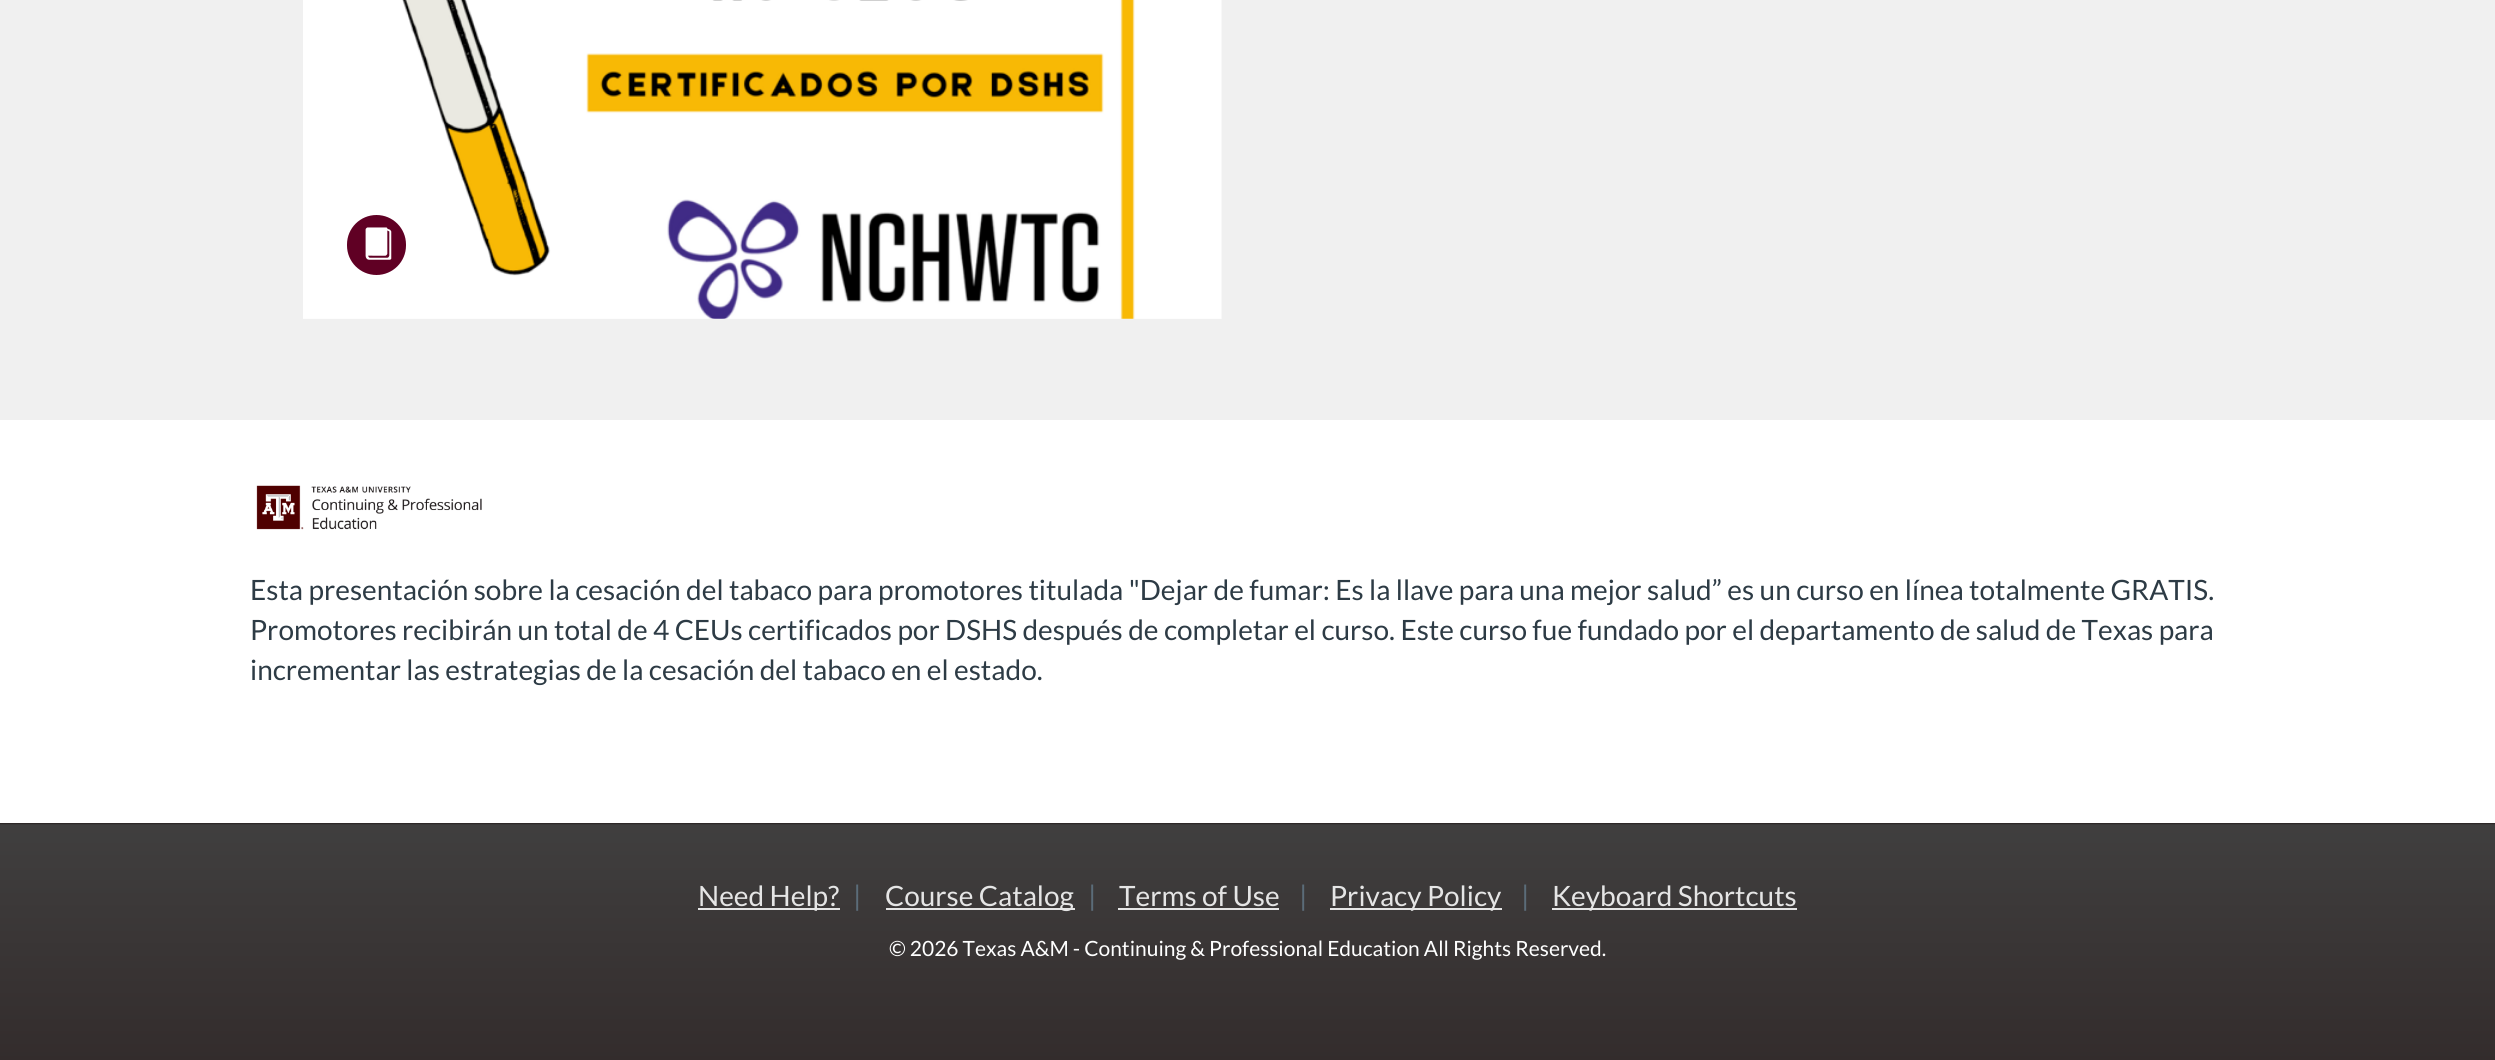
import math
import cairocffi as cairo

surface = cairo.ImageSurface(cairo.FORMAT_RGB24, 2495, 1060)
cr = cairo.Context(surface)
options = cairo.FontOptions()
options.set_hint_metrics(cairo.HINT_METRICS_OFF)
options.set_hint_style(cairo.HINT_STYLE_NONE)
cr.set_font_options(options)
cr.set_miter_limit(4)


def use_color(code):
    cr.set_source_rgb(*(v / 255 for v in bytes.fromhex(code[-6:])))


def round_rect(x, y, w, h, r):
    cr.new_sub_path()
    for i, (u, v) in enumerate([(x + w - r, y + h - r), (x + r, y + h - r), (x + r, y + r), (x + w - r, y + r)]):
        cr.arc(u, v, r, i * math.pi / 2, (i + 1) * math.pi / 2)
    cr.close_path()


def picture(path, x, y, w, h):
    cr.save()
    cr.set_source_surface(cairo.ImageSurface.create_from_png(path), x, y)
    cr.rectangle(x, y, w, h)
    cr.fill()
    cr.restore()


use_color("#ffffff")
cr.paint()
use_color("#f0f0f0")
cr.rectangle(0, 0, 2495, 420)
cr.fill()
use_color("#f8f8f8")
cr.rectangle(303, 0, 919, 319)
cr.fill()
picture("img1.png", 303, 0, 918, 319)
use_color("#600024")
round_rect(343.5, 211.5, 66, 67, 33)
cr.fill_preserve()
use_color("#ffffff")
cr.set_line_width(7)
cr.stroke()
picture("img2.png", 365, 227, 27, 33)
picture("img3.png", 256, 485, 226, 45)
cr.select_font_face("Lato")
cr.set_font_size(28)
use_color("#2d3b45")
cr.move_to(250, 600)
cr.show_text("Esta presentación sobre la cesación del tabaco para promotores titulada \"Dejar de fumar: Es la llave para una mejor salud” es un curso en línea totalmente GRATIS.")
cr.move_to(250, 640)
cr.show_text("Promotores recibirán un total de 4 CEUs certificados por DSHS después de completar el curso. Este curso fue fundado por el departamento de salud de Texas para")
cr.move_to(250, 680)
cr.show_text("incrementar las estrategias de la cesación del tabaco en el estado.")
gradient = cairo.LinearGradient(1248, 588, 1248, 824)
gradient.add_color_stop_rgba(0, 0.227, 0.224, 0.224, 1)
gradient.add_color_stop_rgba(1, 0.18, 0.157, 0.157, 1)
cr.set_source(gradient)
cr.rectangle(0, 823, 2495, 1)
cr.fill()
gradient = cairo.LinearGradient(1248, 824, 1248, 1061)
gradient.add_color_stop_rgba(0, 0.251, 0.247, 0.247, 1)
gradient.add_color_stop_rgba(1, 0.2, 0.173, 0.173, 1)
cr.set_source(gradient)
cr.rectangle(0, 825, 2495, 235)
cr.fill()
gradient = cairo.LinearGradient(1248, 824, 1248, 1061)
gradient.add_color_stop_rgba(0, 0.227, 0.224, 0.224, 1)
gradient.add_color_stop_rgba(1, 0.18, 0.157, 0.157, 1)
cr.set_source(gradient)
cr.rectangle(0, 824, 2495, 1)
cr.fill()
use_color("#e5e5e5")
cr.rectangle(698, 908, 142, 2)
cr.fill()
cr.move_to(698, 906)
cr.show_text("Need Help?")
use_color("#5b6c79")
cr.move_to(853, 906)
cr.show_text("|")
use_color("#e5e5e5")
cr.rectangle(886, 908, 189, 2)
cr.fill()
cr.move_to(885, 906)
cr.show_text("Course Catalog")
use_color("#5b6c79")
cr.move_to(1088, 906)
cr.show_text("|")
use_color("#e5e5e5")
cr.move_to(1119, 906)
cr.show_text("Terms of Use")
cr.rectangle(1118, 908, 161, 2)
cr.fill()
use_color("#5b6c79")
cr.move_to(1299, 906)
cr.show_text("|")
use_color("#e5e5e5")
cr.rectangle(1330, 908, 172, 2)
cr.fill()
cr.move_to(1330, 906)
cr.show_text("Privacy Policy")
use_color("#5b6c79")
cr.move_to(1521, 906)
cr.show_text("|")
use_color("#e5e5e5")
cr.rectangle(1552, 908, 245, 2)
cr.fill()
cr.move_to(1552, 906)
cr.show_text("Keyboard Shortcuts")
cr.set_font_size(21)
use_color("#ffffff")
cr.move_to(889, 956)
cr.show_text("© 2026 Texas A&M - Continuing & Professional Education All Rights Reserved.")
surface.write_to_png("result.png")
